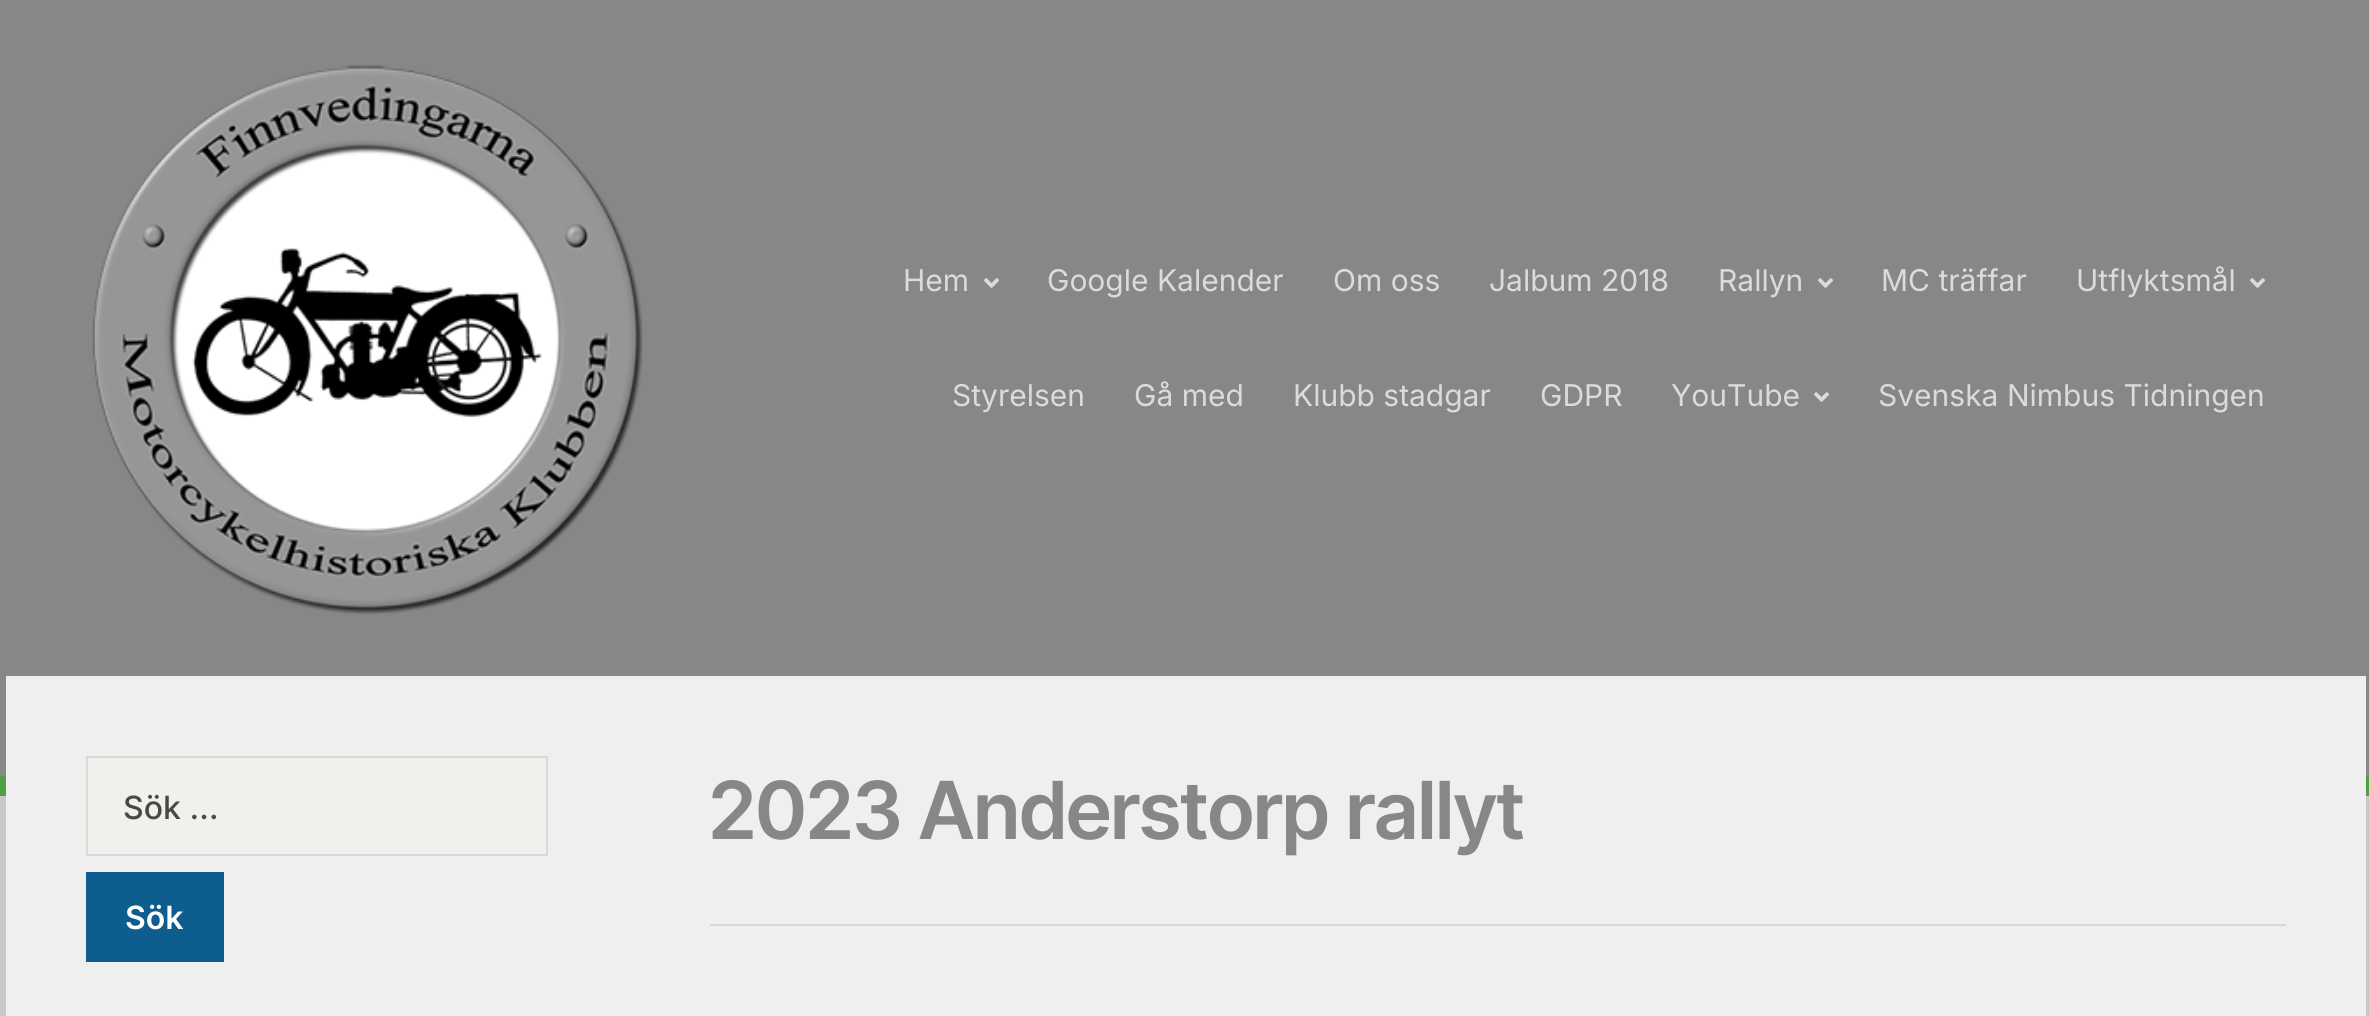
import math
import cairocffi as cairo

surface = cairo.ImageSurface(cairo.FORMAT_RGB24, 2369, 1016)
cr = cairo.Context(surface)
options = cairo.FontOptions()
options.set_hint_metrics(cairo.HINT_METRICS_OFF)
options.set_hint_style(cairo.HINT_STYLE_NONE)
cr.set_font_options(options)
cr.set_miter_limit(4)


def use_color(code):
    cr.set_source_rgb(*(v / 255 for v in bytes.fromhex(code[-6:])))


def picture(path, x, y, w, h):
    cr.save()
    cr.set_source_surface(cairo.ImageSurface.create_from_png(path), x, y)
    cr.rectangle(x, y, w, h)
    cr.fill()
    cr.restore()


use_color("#c9c8c5")
cr.paint()
use_color("#878787")
cr.rectangle(0, 0, 2369, 776)
cr.fill()
use_color("#4fa043")
cr.rectangle(0, 776, 2369, 20)
cr.fill()
picture("img1.png", 92, 65, 551, 550)
cr.select_font_face("Inter")
cr.set_font_size(30)
use_color("#dbdbdb")
cr.move_to(903, 291)
cr.show_text("Hem")
picture("img2.png", 984, 278, 15, 10)
cr.move_to(1047, 291)
cr.show_text("Google Kalender")
cr.move_to(1333, 291)
cr.show_text("Om oss")
cr.move_to(1489, 291)
cr.show_text("Jalbum 2018")
cr.move_to(1718, 291)
cr.show_text("Rallyn")
picture("img2.png", 1818, 278, 15, 10)
cr.move_to(1881, 291)
cr.show_text("MC träffar")
cr.move_to(2076, 291)
cr.show_text("Utflyktsmål")
picture("img2.png", 2250, 278, 15, 10)
cr.move_to(952, 406)
cr.show_text("Styrelsen")
cr.move_to(1134, 406)
cr.show_text("Gå med")
cr.move_to(1293, 406)
cr.show_text("Klubb stadgar")
cr.move_to(1540, 406)
cr.show_text("GDPR")
cr.move_to(1671, 406)
cr.show_text("YouTube")
picture("img2.png", 1814, 392, 15, 10)
cr.move_to(1878, 406)
cr.show_text("Svenska Nimbus Tidningen")
use_color("#efefef")
cr.rectangle(6, 676, 2360, 340)
cr.fill()
use_color("#f2f0ed")
cr.rectangle(87, 757, 460, 98)
cr.fill_preserve()
use_color("#dad8d5")
cr.stroke()
cr.select_font_face("Inter Medium")
cr.set_font_size(32)
use_color("#484848")
cr.move_to(123, 819)
cr.show_text("Sök …")
use_color("#0d5d8f")
cr.rectangle(86, 872, 138, 90)
cr.fill()
cr.select_font_face("Inter SemiBold")
use_color("#ffffff")
cr.move_to(125, 929)
cr.show_text("Sök")
use_color("#d7d7d7")
cr.rectangle(710, 924, 1576, 2)
cr.fill()
cr.select_font_face("Inter Tight SemiBold")
cr.set_font_size(80)
use_color("#878787")
cr.move_to(709, 839)
cr.show_text("2023 Anderstorp rallyt")
surface.write_to_png("result.png")
